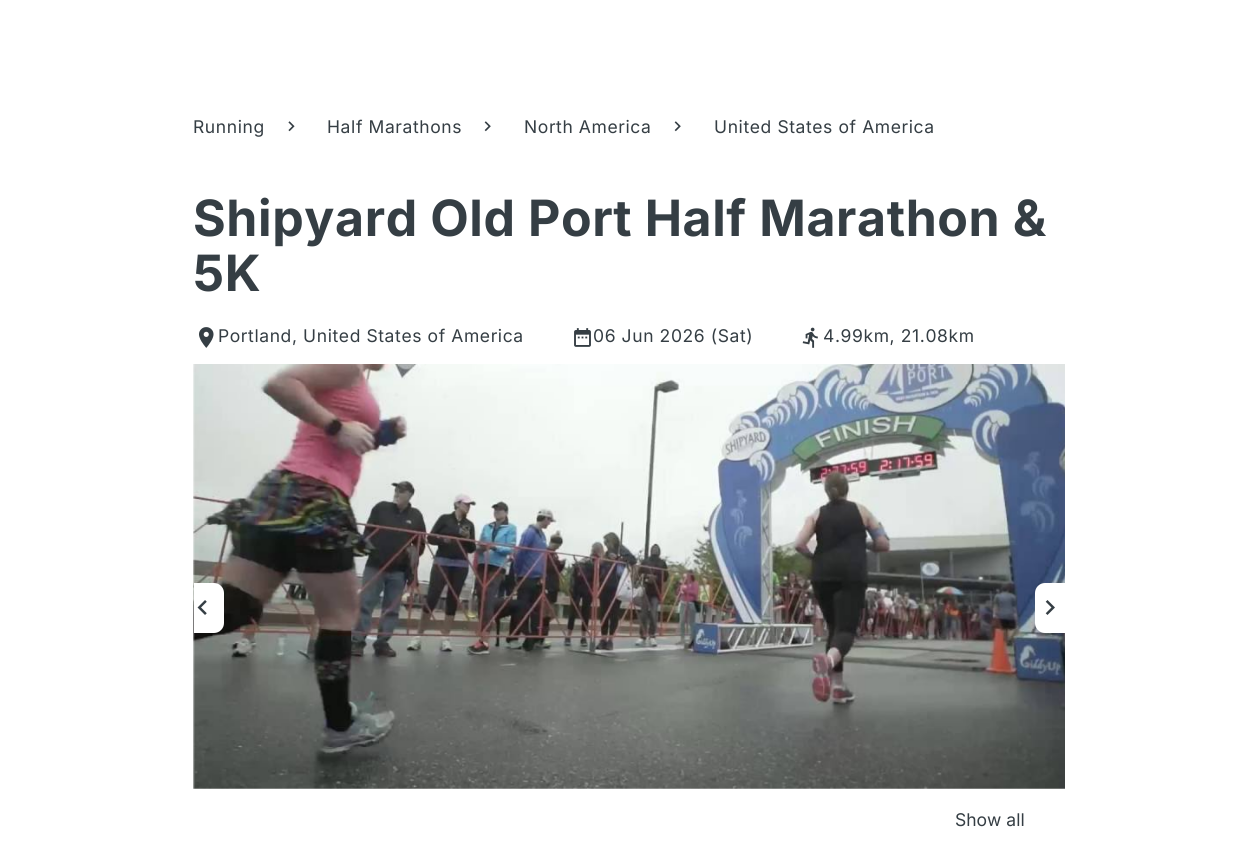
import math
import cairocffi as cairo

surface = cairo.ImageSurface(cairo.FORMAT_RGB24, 1257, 849)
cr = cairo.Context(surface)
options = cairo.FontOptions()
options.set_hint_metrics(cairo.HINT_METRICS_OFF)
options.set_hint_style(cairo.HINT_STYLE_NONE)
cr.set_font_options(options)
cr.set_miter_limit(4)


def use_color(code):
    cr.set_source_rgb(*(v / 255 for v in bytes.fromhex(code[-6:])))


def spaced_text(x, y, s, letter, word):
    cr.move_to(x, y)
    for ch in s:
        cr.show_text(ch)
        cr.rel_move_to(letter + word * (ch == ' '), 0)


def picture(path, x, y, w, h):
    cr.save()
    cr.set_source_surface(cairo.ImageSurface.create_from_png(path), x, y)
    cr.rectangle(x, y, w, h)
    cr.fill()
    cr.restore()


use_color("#ffffff")
cr.paint()
cr.select_font_face("Inter")
cr.set_font_size(17.5)
use_color("#353e44")
spaced_text(193, 133, "Running", 0.6, 0)
picture("img1.png", 288, 121, 7, 11)
spaced_text(327, 133, "Half Marathons", 0.6, 0)
picture("img2.png", 484, 121, 7, 11)
spaced_text(524, 133, "North America", 0.6, 0)
picture("img2.png", 674, 121, 7, 11)
spaced_text(714, 133, "United States of America", 0.6, 0)
cr.select_font_face("Inter", cairo.FONT_SLANT_NORMAL, cairo.FONT_WEIGHT_BOLD)
cr.set_font_size(50)
spaced_text(193, 236, "Shipyard Old Port Half Marathon &", 0.6, 0)
spaced_text(193, 291, "5K", 0.6, 0)
picture("img3.png", 199, 327, 15, 21)
cr.select_font_face("Inter")
cr.set_font_size(17.5)
spaced_text(218, 342, "Portland, United States of America", 0.6, 0)
picture("img4.png", 574, 328, 17, 19)
spaced_text(593, 342, "06 Jun 2026 (Sat)", 0.6, 0)
picture("img5.png", 802, 327, 16, 21)
spaced_text(823, 342, "4.99km, 21.08km", 0.6, 0)
picture("img6.png", 193, 364, 872, 425)
use_color("#ffffff")
cr.new_path()
cr.move_to(194, 583)
cr.line_to(214, 583)
cr.curve_to(219.5, 583, 224, 587.5, 224, 593)
cr.line_to(224, 623)
cr.curve_to(224, 628.5, 219.5, 633, 214, 633)
cr.line_to(194, 633)
cr.close_path()
cr.fill()
picture("img7.png", 197, 600, 10, 15)
cr.new_path()
cr.move_to(1045, 583)
cr.line_to(1065, 583)
cr.line_to(1065, 633)
cr.line_to(1045, 633)
cr.curve_to(1039.5, 633, 1035, 628.5, 1035, 623)
cr.line_to(1035, 593)
cr.curve_to(1035, 587.5, 1039.5, 583, 1045, 583)
cr.close_path()
cr.fill()
picture("img8.png", 1045, 600, 10, 15)
use_color("#353e44")
cr.move_to(955, 826)
cr.show_text("Show all")
surface.write_to_png("result.png")
